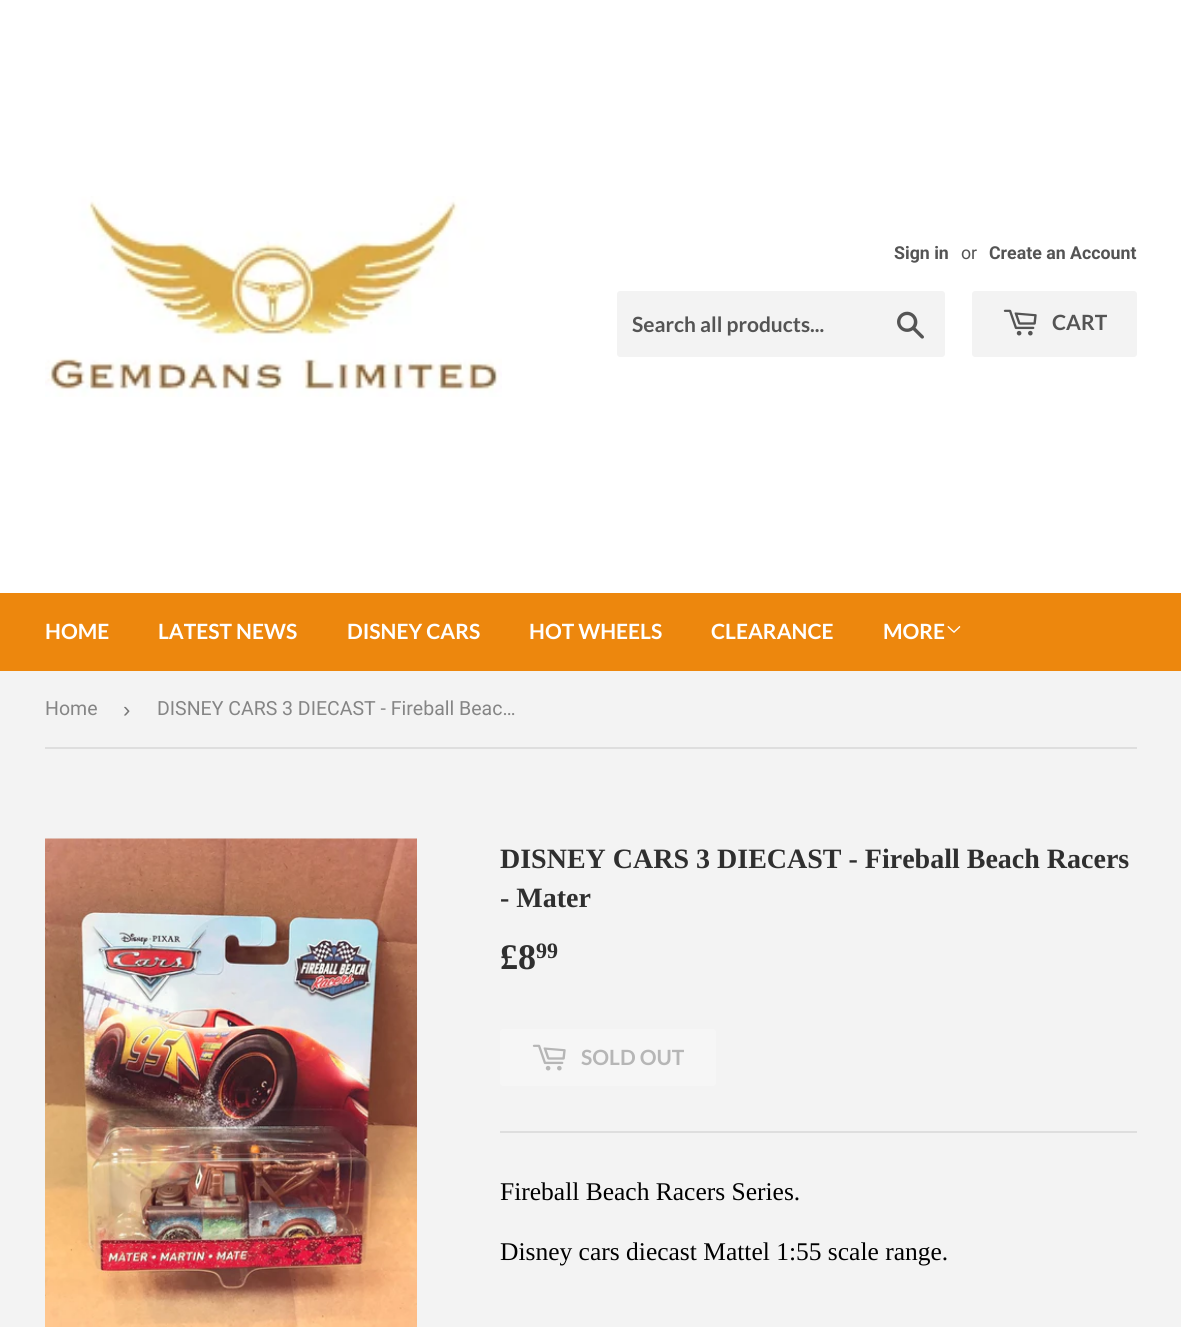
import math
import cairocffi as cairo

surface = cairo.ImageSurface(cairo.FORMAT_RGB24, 1181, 1327)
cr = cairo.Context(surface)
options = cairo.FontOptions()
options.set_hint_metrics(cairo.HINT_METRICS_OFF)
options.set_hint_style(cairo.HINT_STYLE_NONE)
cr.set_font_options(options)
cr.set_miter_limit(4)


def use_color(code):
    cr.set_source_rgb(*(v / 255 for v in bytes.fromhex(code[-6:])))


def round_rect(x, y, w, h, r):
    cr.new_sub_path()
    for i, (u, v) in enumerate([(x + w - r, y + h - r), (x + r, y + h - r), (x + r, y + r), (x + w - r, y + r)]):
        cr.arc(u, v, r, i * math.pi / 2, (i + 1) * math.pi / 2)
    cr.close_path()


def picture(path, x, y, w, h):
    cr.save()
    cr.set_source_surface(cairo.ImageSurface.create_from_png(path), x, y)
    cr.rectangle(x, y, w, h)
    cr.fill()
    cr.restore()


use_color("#f3f3f3")
cr.paint()
use_color("#ffffff")
cr.rectangle(0, 0, 1181, 593)
cr.fill()
picture("img1.png", 45, 196, 457, 201)
cr.select_font_face("Roboto", cairo.FONT_SLANT_NORMAL, cairo.FONT_WEIGHT_BOLD)
cr.set_font_size(17.75)
use_color("#545454")
cr.move_to(894, 259)
cr.show_text("Sign in")
cr.select_font_face("Roboto")
cr.move_to(961, 259)
cr.show_text("or")
cr.select_font_face("Roboto", cairo.FONT_SLANT_NORMAL, cairo.FONT_WEIGHT_BOLD)
cr.move_to(989, 259)
cr.show_text("Create an Account")
use_color("#f3f3f3")
round_rect(617, 291, 328, 66, 3)
cr.fill()
cr.select_font_face("Lato", cairo.FONT_SLANT_NORMAL, cairo.FONT_WEIGHT_BOLD)
cr.set_font_size(21)
use_color("#545454")
cr.move_to(632, 332)
cr.show_text("Search all products...")
picture("img2.png", 897, 311, 27, 28)
use_color("#f3f3f3")
round_rect(972, 291, 165, 66, 3)
cr.fill()
picture("img3.png", 1003, 309, 34, 27)
use_color("#545454")
cr.move_to(1052, 330)
cr.show_text("CART")
use_color("#ed870d")
cr.rectangle(0, 593, 1181, 78)
cr.fill()
use_color("#ffffff")
cr.move_to(45, 639)
cr.show_text("HOME")
cr.move_to(158, 639)
cr.show_text("LATEST NEWS")
cr.move_to(347, 639)
cr.show_text("DISNEY CARS")
cr.move_to(529, 639)
cr.show_text("HOT WHEELS")
cr.move_to(711, 639)
cr.show_text("CLEARANCE")
cr.move_to(883, 639)
cr.show_text("MORE")
picture("img4.png", 947, 626, 14, 7)
use_color("#dedede")
cr.rectangle(45, 747, 1092, 2)
cr.fill()
cr.select_font_face("Roboto")
cr.set_font_size(19.5)
use_color("#858585")
cr.move_to(45, 715)
cr.show_text("Home")
cr.select_font_face("Liberation Sans")
cr.set_font_size(22)
use_color("#767676")
cr.move_to(123, 717)
cr.show_text("›")
cr.select_font_face("Roboto")
cr.set_font_size(19.5)
use_color("#858585")
cr.move_to(157, 715)
cr.show_text("DISNEY CARS 3 DIECAST - Fireball Beac…")
picture("img5.png", 45, 838, 372, 489)
cr.select_font_face("Liberation Serif", cairo.FONT_SLANT_NORMAL, cairo.FONT_WEIGHT_BOLD)
cr.set_font_size(28)
use_color("#2f2f2f")
cr.move_to(500, 868)
cr.show_text("DISNEY CARS 3 DIECAST - Fireball Beach Racers")
cr.move_to(500, 907)
cr.show_text("- Mater")
cr.set_font_size(36)
cr.move_to(500, 969)
cr.show_text("£8")
cr.set_font_size(22)
cr.move_to(536, 958)
cr.show_text("99")
use_color("#f6f6f6")
round_rect(500, 1029, 216, 57, 3)
cr.fill()
picture("img6.png", 532, 1044, 34, 27)
cr.select_font_face("Lato", cairo.FONT_SLANT_NORMAL, cairo.FONT_WEIGHT_BOLD)
cr.set_font_size(21)
use_color("#b6b6b6")
cr.move_to(581, 1065)
cr.show_text("SOLD OUT")
use_color("#dedede")
cr.rectangle(500, 1131, 637, 2)
cr.fill()
cr.select_font_face("Liberation Serif")
cr.set_font_size(25.5)
use_color("#000000")
cr.move_to(500, 1200)
cr.show_text("Fireball Beach Racers Series.")
cr.move_to(500, 1260)
cr.show_text("Disney cars diecast Mattel 1:55 scale range.")
surface.write_to_png("result.png")
